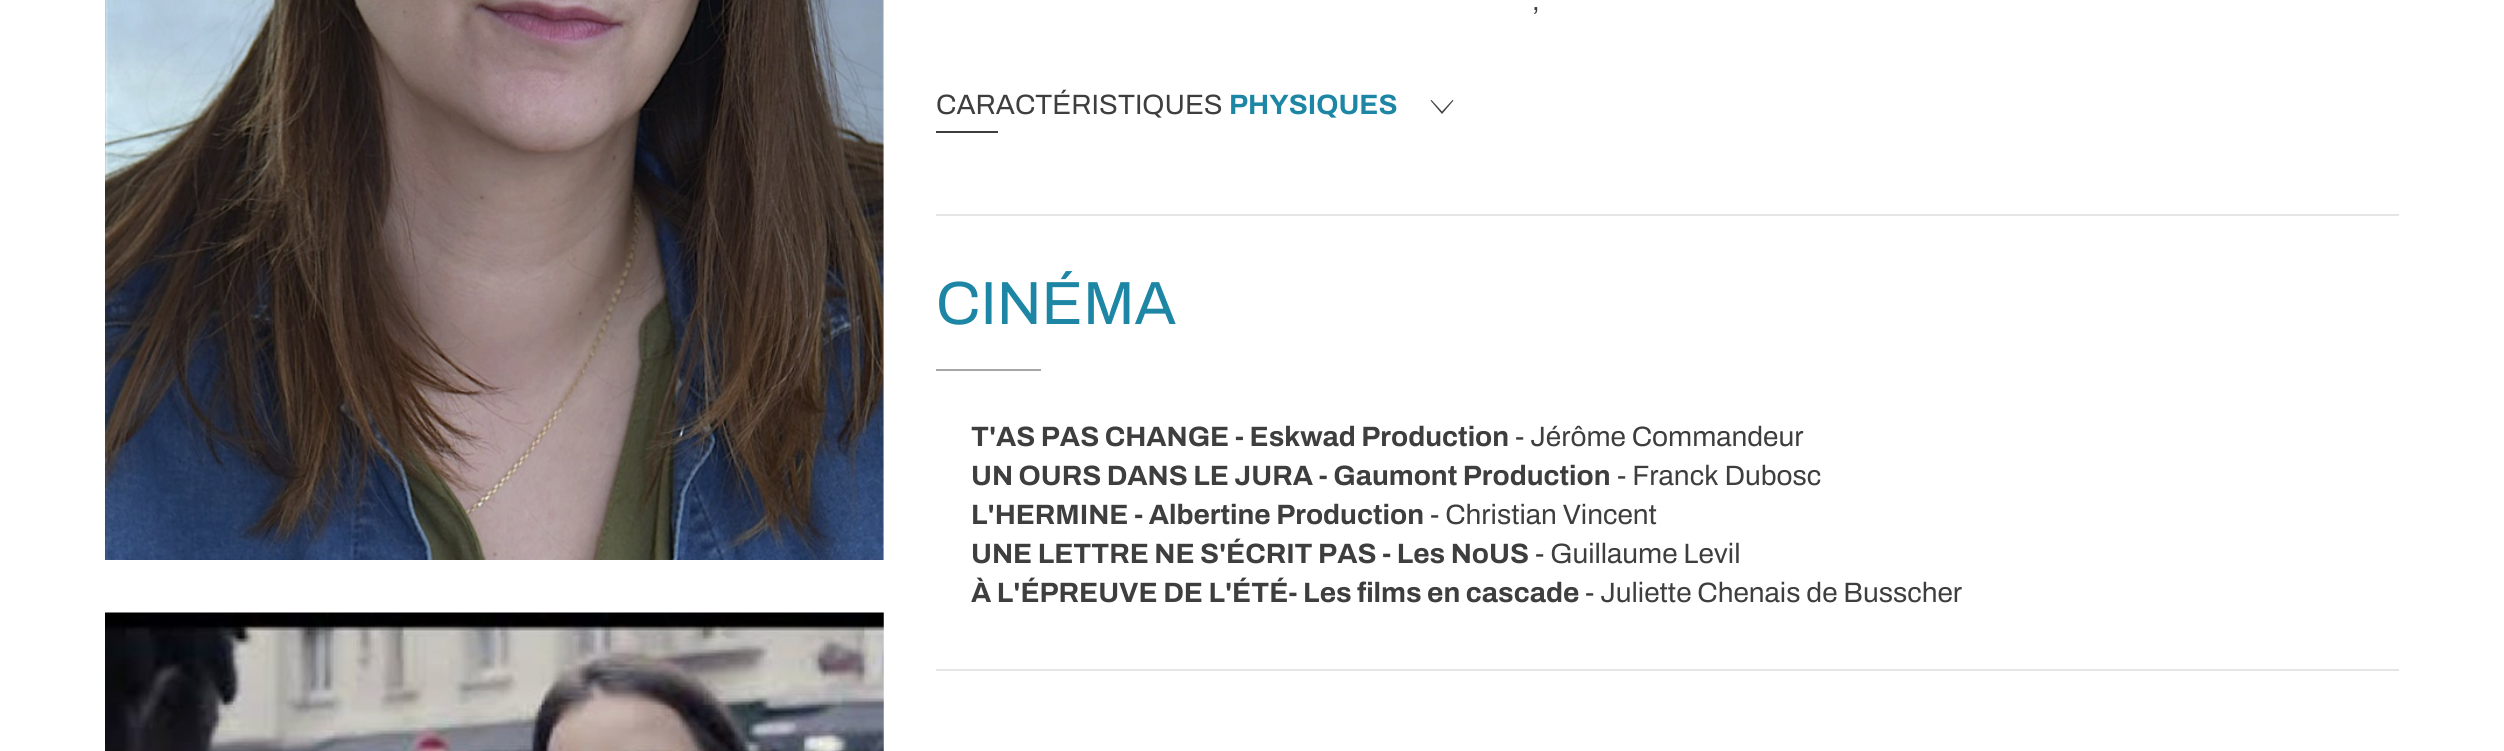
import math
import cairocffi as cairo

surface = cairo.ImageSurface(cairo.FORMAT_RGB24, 2504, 751)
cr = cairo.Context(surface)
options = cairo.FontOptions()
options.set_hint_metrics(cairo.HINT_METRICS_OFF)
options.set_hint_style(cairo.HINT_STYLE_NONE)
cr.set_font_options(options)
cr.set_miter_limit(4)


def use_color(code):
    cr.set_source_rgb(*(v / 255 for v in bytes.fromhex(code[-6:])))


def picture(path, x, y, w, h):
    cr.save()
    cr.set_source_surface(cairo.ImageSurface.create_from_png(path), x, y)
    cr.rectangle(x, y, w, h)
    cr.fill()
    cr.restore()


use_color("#ffffff")
cr.paint()
picture("img1.png", 105, 0, 779, 560)
picture("img2.png", 105, 612, 779, 139)
cr.select_font_face("Archivo")
cr.set_font_size(28)
use_color("#3e3e3e")
cr.move_to(1532, 10)
cr.show_text(",")
cr.move_to(936, 114)
cr.show_text("CARACTÉRISTIQUES")
cr.select_font_face("Archivo", cairo.FONT_SLANT_NORMAL, cairo.FONT_WEIGHT_BOLD)
use_color("#1d86a5")
cr.move_to(1229, 114)
cr.show_text("PHYSIQUES")
use_color("#3e3e3e")
cr.new_path()
cr.move_to(1430.5, 100.5)
cr.line_to(1431.5, 100)
cr.line_to(1442, 111.5)
cr.line_to(1452.5, 100)
cr.line_to(1453.5, 100.5)
cr.line_to(1442, 114)
cr.close_path()
cr.fill()
cr.rectangle(936, 131, 62, 2)
cr.fill()
use_color("#e5e5e5")
cr.rectangle(936, 214, 1463, 2)
cr.fill()
cr.select_font_face("Archivo")
cr.set_font_size(61)
use_color("#1d86a5")
cr.move_to(936, 324)
cr.show_text("CINÉMA")
use_color("#a6a6a6")
cr.rectangle(936, 369, 105, 2)
cr.fill()
cr.select_font_face("Archivo", cairo.FONT_SLANT_NORMAL, cairo.FONT_WEIGHT_BOLD)
cr.set_font_size(28)
use_color("#3e3e3e")
cr.move_to(971, 446)
cr.show_text("T'AS PAS CHANGE - Eskwad Production")
cr.select_font_face("Archivo")
cr.move_to(1515, 446)
cr.show_text("- Jérôme Commandeur")
cr.select_font_face("Archivo", cairo.FONT_SLANT_NORMAL, cairo.FONT_WEIGHT_BOLD)
cr.move_to(971, 485)
cr.show_text("UN OURS DANS LE JURA - Gaumont Production")
cr.select_font_face("Archivo")
cr.move_to(1617, 485)
cr.show_text("- Franck Dubosc")
cr.select_font_face("Archivo", cairo.FONT_SLANT_NORMAL, cairo.FONT_WEIGHT_BOLD)
cr.move_to(971, 524)
cr.show_text("L'HERMINE - Albertine Production")
cr.select_font_face("Archivo")
cr.move_to(1430, 524)
cr.show_text("- Christian Vincent")
cr.select_font_face("Archivo", cairo.FONT_SLANT_NORMAL, cairo.FONT_WEIGHT_BOLD)
cr.move_to(971, 563)
cr.show_text("UNE LETTRE NE S'ÉCRIT PAS - Les NoUS")
cr.select_font_face("Archivo")
cr.move_to(1535, 563)
cr.show_text("- Guillaume Levil")
cr.select_font_face("Archivo", cairo.FONT_SLANT_NORMAL, cairo.FONT_WEIGHT_BOLD)
cr.move_to(971, 602)
cr.show_text("À L'ÉPREUVE DE L'ÉTÉ- Les films en cascade")
cr.select_font_face("Archivo")
cr.move_to(1585, 602)
cr.show_text("- Juliette Chenais de Busscher")
use_color("#e5e5e5")
cr.rectangle(936, 669, 1463, 2)
cr.fill()
surface.write_to_png("result.png")
